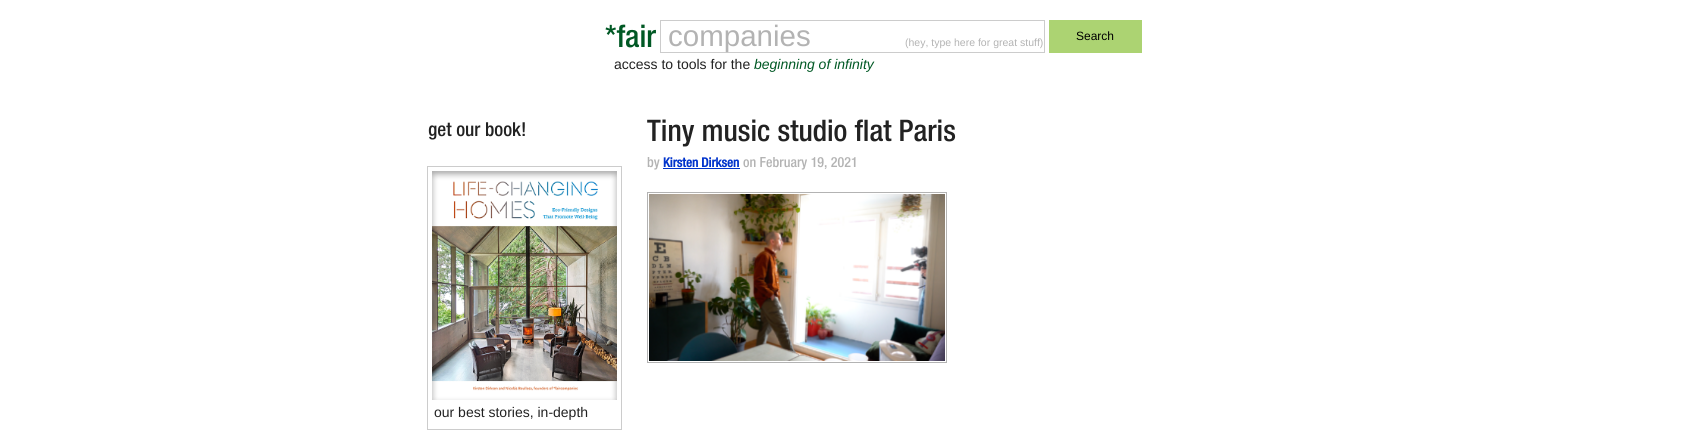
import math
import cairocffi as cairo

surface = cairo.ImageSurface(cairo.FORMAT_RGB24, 1705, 438)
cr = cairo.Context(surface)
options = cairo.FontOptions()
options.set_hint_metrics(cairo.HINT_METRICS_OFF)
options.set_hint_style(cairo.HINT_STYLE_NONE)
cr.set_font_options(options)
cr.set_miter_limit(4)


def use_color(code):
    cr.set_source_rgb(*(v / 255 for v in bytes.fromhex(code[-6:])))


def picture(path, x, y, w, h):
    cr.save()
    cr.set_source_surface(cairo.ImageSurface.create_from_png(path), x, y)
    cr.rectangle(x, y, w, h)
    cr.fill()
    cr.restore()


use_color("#ffffff")
cr.paint()
cr.select_font_face("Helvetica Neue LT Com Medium")
cr.set_font_size(31)
use_color("#005824")
cr.move_to(605, 47)
cr.show_text("*fair")
cr.rectangle(660.5, 20.5, 384, 32)
use_color("#cccccc")
cr.set_line_width(1)
cr.stroke()
cr.select_font_face("Liberation Sans")
cr.set_font_size(29.5)
use_color("#b3b3b3")
cr.move_to(668, 46)
cr.show_text("companies")
cr.set_font_size(10.5)
cr.move_to(905, 46)
cr.show_text("(hey, type here for great stuff)")
cr.set_font_size(14)
use_color("#222222")
cr.move_to(614, 69)
cr.show_text("access to tools for the")
cr.select_font_face("Liberation Sans", cairo.FONT_SLANT_ITALIC)
use_color("#005824")
cr.move_to(754, 69)
cr.show_text("beginning of infinity")
use_color("#acd372")
cr.rectangle(1049, 20, 93, 33)
cr.fill()
cr.select_font_face("Liberation Sans")
cr.set_font_size(12)
use_color("#000000")
cr.move_to(1076, 40)
cr.show_text("Search")
cr.select_font_face("Helvetica Neue LT Com Medium")
cr.set_font_size(19.25)
use_color("#222222")
cr.move_to(428, 136)
cr.show_text("get our book!")
cr.rectangle(427.5, 166.5, 194, 263)
use_color("#cccccc")
cr.stroke()
picture("img1.png", 432, 171, 185, 229)
cr.select_font_face("Liberation Sans")
cr.set_font_size(14)
use_color("#222222")
cr.move_to(434, 417)
cr.show_text("our best stories, in-depth")
cr.select_font_face("Helvetica Neue LT Com Medium")
cr.set_font_size(29.75)
cr.move_to(647, 141)
cr.show_text("Tiny music studio flat Paris")
cr.set_font_size(14)
use_color("#b3b3b3")
cr.move_to(647, 167)
cr.show_text("by")
cr.select_font_face("Helvetica Neue LT Com", cairo.FONT_SLANT_NORMAL, cairo.FONT_WEIGHT_BOLD)
cr.set_font_size(13)
use_color("#0033cc")
cr.move_to(663, 167)
cr.show_text("Kirsten Dirksen")
cr.rectangle(663, 168, 77, 1)
cr.fill()
cr.select_font_face("Helvetica Neue LT Com Medium")
cr.set_font_size(14)
use_color("#b3b3b3")
cr.move_to(743, 167)
cr.show_text("on February 19, 2021")
cr.rectangle(647.5, 192.5, 299, 170)
cr.stroke()
picture("img2.png", 649, 194, 296, 167)
surface.write_to_png("result.png")
